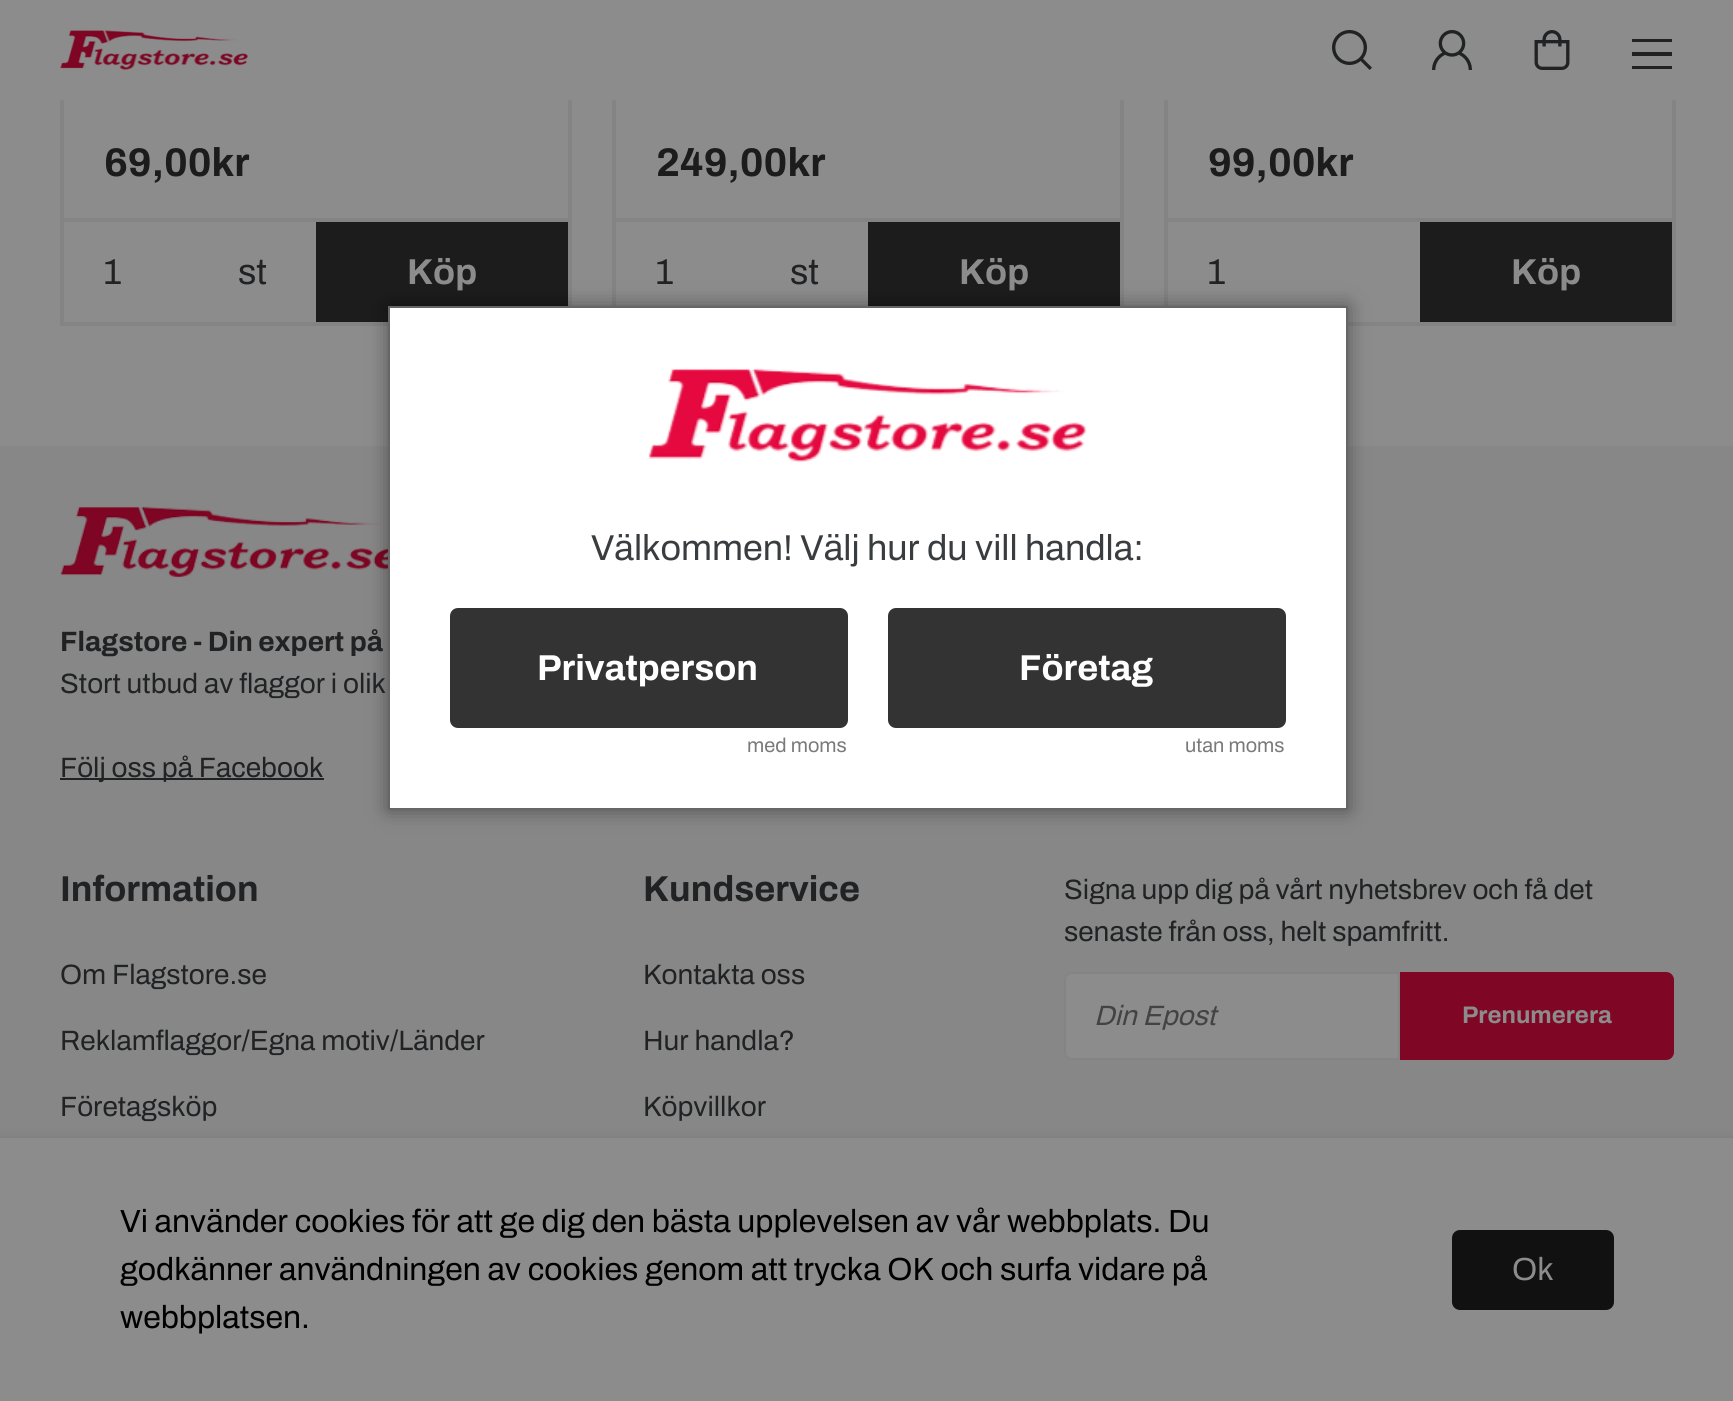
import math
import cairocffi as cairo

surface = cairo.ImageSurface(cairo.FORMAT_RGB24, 1733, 1401)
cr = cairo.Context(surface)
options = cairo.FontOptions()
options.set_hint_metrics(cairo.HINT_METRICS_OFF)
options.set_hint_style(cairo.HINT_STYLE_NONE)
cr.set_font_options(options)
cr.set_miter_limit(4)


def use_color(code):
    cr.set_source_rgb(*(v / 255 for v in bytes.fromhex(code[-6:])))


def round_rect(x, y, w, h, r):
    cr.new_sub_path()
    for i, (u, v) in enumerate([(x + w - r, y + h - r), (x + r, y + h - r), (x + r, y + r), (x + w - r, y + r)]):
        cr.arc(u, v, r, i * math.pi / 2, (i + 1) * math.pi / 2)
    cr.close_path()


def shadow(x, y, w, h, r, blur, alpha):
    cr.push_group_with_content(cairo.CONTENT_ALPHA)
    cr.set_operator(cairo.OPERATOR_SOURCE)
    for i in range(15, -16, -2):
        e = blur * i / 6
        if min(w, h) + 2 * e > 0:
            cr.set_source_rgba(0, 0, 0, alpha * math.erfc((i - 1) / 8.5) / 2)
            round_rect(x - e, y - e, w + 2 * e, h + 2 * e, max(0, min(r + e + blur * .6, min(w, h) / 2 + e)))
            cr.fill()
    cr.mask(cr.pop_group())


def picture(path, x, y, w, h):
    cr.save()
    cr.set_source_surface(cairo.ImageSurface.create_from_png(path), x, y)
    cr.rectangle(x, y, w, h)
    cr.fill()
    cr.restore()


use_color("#8c8c8c")
cr.paint()
cr.rectangle(62, -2, 508, 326)
use_color("#848484")
cr.set_line_width(4)
cr.stroke()
cr.rectangle(614, -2, 508, 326)
cr.stroke()
cr.rectangle(1166, -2, 508, 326)
cr.stroke()
use_color("#8c8c8c")
cr.rectangle(60, 0, 1616, 100)
cr.fill()
picture("img1.png", 60, 30, 188, 40)
picture("img2.png", 1332, 30, 40, 40)
picture("img3.png", 1432, 30, 40, 40)
picture("img4.png", 1534, 30, 36, 40)
use_color("#202223")
cr.rectangle(1632, 39, 40, 3)
cr.fill()
cr.rectangle(1632, 52, 40, 4)
cr.fill()
cr.rectangle(1632, 66, 40, 3)
cr.fill()
cr.select_font_face("Archivo", cairo.FONT_SLANT_NORMAL, cairo.FONT_WEIGHT_BOLD)
cr.set_font_size(40)
use_color("#1c1c1c")
cr.move_to(104, 176)
cr.show_text("69,00kr")
use_color("#848484")
cr.rectangle(64, 218, 504, 4)
cr.fill()
cr.select_font_face("Archivo")
cr.set_font_size(36)
use_color("#202223")
cr.move_to(103, 284)
cr.show_text("1")
cr.move_to(238, 284)
cr.show_text("st")
use_color("#1c1c1c")
cr.rectangle(316, 222, 252, 100)
cr.fill()
cr.select_font_face("Archivo", cairo.FONT_SLANT_NORMAL, cairo.FONT_WEIGHT_BOLD)
use_color("#8c8c8c")
cr.move_to(407, 284)
cr.show_text("Köp")
cr.set_font_size(40)
use_color("#1c1c1c")
cr.move_to(656, 176)
cr.show_text("249,00kr")
use_color("#848484")
cr.rectangle(616, 218, 504, 4)
cr.fill()
cr.select_font_face("Archivo")
cr.set_font_size(36)
use_color("#202223")
cr.move_to(655, 284)
cr.show_text("1")
cr.move_to(790, 284)
cr.show_text("st")
use_color("#1c1c1c")
cr.rectangle(868, 222, 252, 84)
cr.fill()
cr.select_font_face("Archivo", cairo.FONT_SLANT_NORMAL, cairo.FONT_WEIGHT_BOLD)
use_color("#8c8c8c")
cr.move_to(959, 284)
cr.show_text("Köp")
cr.set_font_size(40)
use_color("#1c1c1c")
cr.move_to(1208, 176)
cr.show_text("99,00kr")
use_color("#848484")
cr.rectangle(1168, 218, 504, 4)
cr.fill()
cr.select_font_face("Archivo")
cr.set_font_size(36)
use_color("#202223")
cr.move_to(1207, 284)
cr.show_text("1")
use_color("#1c1c1c")
cr.rectangle(1420, 222, 252, 100)
cr.fill()
cr.select_font_face("Archivo", cairo.FONT_SLANT_NORMAL, cairo.FONT_WEIGHT_BOLD)
use_color("#8c8c8c")
cr.move_to(1511, 284)
cr.show_text("Köp")
use_color("#878787")
cr.rectangle(0, 446, 1733, 692)
cr.fill()
picture("img6.png", 60, 506, 328, 72)
use_color("#000000")
shadow(388, 306, 960, 504, 0, 10, 0.4)
use_color("#ffffff")
cr.rectangle(389, 307, 958, 502)
cr.fill_preserve()
use_color("#666666")
cr.set_line_width(2)
cr.stroke()
picture("img5.png", 648, 368, 439, 94)
cr.select_font_face("Archivo")
use_color("#3a3d3f")
cr.move_to(591, 560)
cr.show_text("Välkommen! Välj hur du vill handla:")
use_color("#333333")
round_rect(450, 608, 398, 120, 8)
cr.fill()
cr.select_font_face("Archivo", cairo.FONT_SLANT_NORMAL, cairo.FONT_WEIGHT_BOLD)
use_color("#ffffff")
cr.move_to(537, 680)
cr.show_text("Privatperson")
cr.select_font_face("Archivo")
cr.set_font_size(20)
use_color("#7a7a7a")
cr.move_to(747, 752)
cr.show_text("med moms")
use_color("#333333")
round_rect(888, 608, 398, 120, 8)
cr.fill()
cr.select_font_face("Archivo", cairo.FONT_SLANT_NORMAL, cairo.FONT_WEIGHT_BOLD)
cr.set_font_size(36)
use_color("#ffffff")
cr.move_to(1019, 680)
cr.show_text("Företag")
cr.select_font_face("Archivo")
cr.set_font_size(20)
use_color("#7a7a7a")
cr.move_to(1185, 752)
cr.show_text("utan moms")
cr.select_font_face("Archivo", cairo.FONT_SLANT_NORMAL, cairo.FONT_WEIGHT_BOLD)
cr.set_font_size(28)
use_color("#202223")
cr.move_to(60, 651)
cr.show_text("Flagstore - Din expert på")
cr.select_font_face("Archivo")
cr.move_to(60, 693)
cr.show_text("Stort utbud av flaggor i olik")
cr.rectangle(60, 778, 264, 2)
cr.fill()
cr.move_to(60, 777)
cr.show_text("Följ oss på Facebook")
cr.select_font_face("Archivo", cairo.FONT_SLANT_NORMAL, cairo.FONT_WEIGHT_BOLD)
cr.set_font_size(36)
cr.move_to(60, 901)
cr.show_text("Information")
cr.select_font_face("Archivo")
cr.set_font_size(28)
cr.move_to(60, 984)
cr.show_text("Om Flagstore.se")
cr.move_to(60, 1050)
cr.show_text("Reklamflaggor/Egna motiv/Länder")
cr.move_to(60, 1116)
cr.show_text("Företagsköp")
cr.select_font_face("Archivo", cairo.FONT_SLANT_NORMAL, cairo.FONT_WEIGHT_BOLD)
cr.set_font_size(36)
cr.move_to(643, 901)
cr.show_text("Kundservice")
cr.select_font_face("Archivo")
cr.set_font_size(28)
cr.move_to(643, 984)
cr.show_text("Kontakta oss")
cr.move_to(643, 1050)
cr.show_text("Hur handla?")
cr.move_to(643, 1116)
cr.show_text("Köpvillkor")
cr.move_to(1064, 899)
cr.show_text("Signa upp dig på vårt nyhetsbrev och få det")
cr.move_to(1064, 941)
cr.show_text("senaste från oss, helt spamfritt.")
use_color("#8c8c8c")
cr.new_path()
cr.move_to(1072, 973)
cr.line_to(1399, 973)
cr.line_to(1399, 1059)
cr.line_to(1072, 1059)
cr.curve_to(1068, 1059, 1065, 1056, 1065, 1052)
cr.line_to(1065, 980)
cr.curve_to(1065, 976, 1068, 973, 1072, 973)
cr.close_path()
cr.fill_preserve()
use_color("#848484")
cr.stroke()
cr.select_font_face("Archivo", cairo.FONT_SLANT_ITALIC)
use_color("#434343")
cr.move_to(1094, 1025)
cr.show_text("Din Epost")
use_color("#7f0624")
cr.new_path()
cr.move_to(1400, 972)
cr.line_to(1666, 972)
cr.curve_to(1670.5, 972, 1674, 975.5, 1674, 980)
cr.line_to(1674, 1052)
cr.curve_to(1674, 1056.5, 1670.5, 1060, 1666, 1060)
cr.line_to(1400, 1060)
cr.close_path()
cr.fill()
cr.select_font_face("Archivo", cairo.FONT_SLANT_NORMAL, cairo.FONT_WEIGHT_BOLD)
cr.set_font_size(24)
use_color("#8c8c8c")
cr.move_to(1462, 1023)
cr.show_text("Prenumerera")
use_color("#111111")
shadow(0, 1140, 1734, 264, 0, 5, 0.2)
use_color("#8c8c8c")
cr.rectangle(0, 1138, 1733, 263)
cr.fill()
cr.select_font_face("Archivo")
cr.set_font_size(32)
use_color("#000000")
cr.move_to(120, 1232)
cr.show_text("Vi använder cookies för att ge dig den bästa upplevelsen av vår webbplats. Du")
cr.move_to(120, 1280)
cr.show_text("godkänner användningen av cookies genom att trycka OK och surfa vidare på")
cr.move_to(120, 1328)
cr.show_text("webbplatsen.")
use_color("#111111")
round_rect(1452, 1230, 162, 80, 8)
cr.fill()
use_color("#8c8c8c")
cr.move_to(1512, 1280)
cr.show_text("Ok")
surface.write_to_png("result.png")
